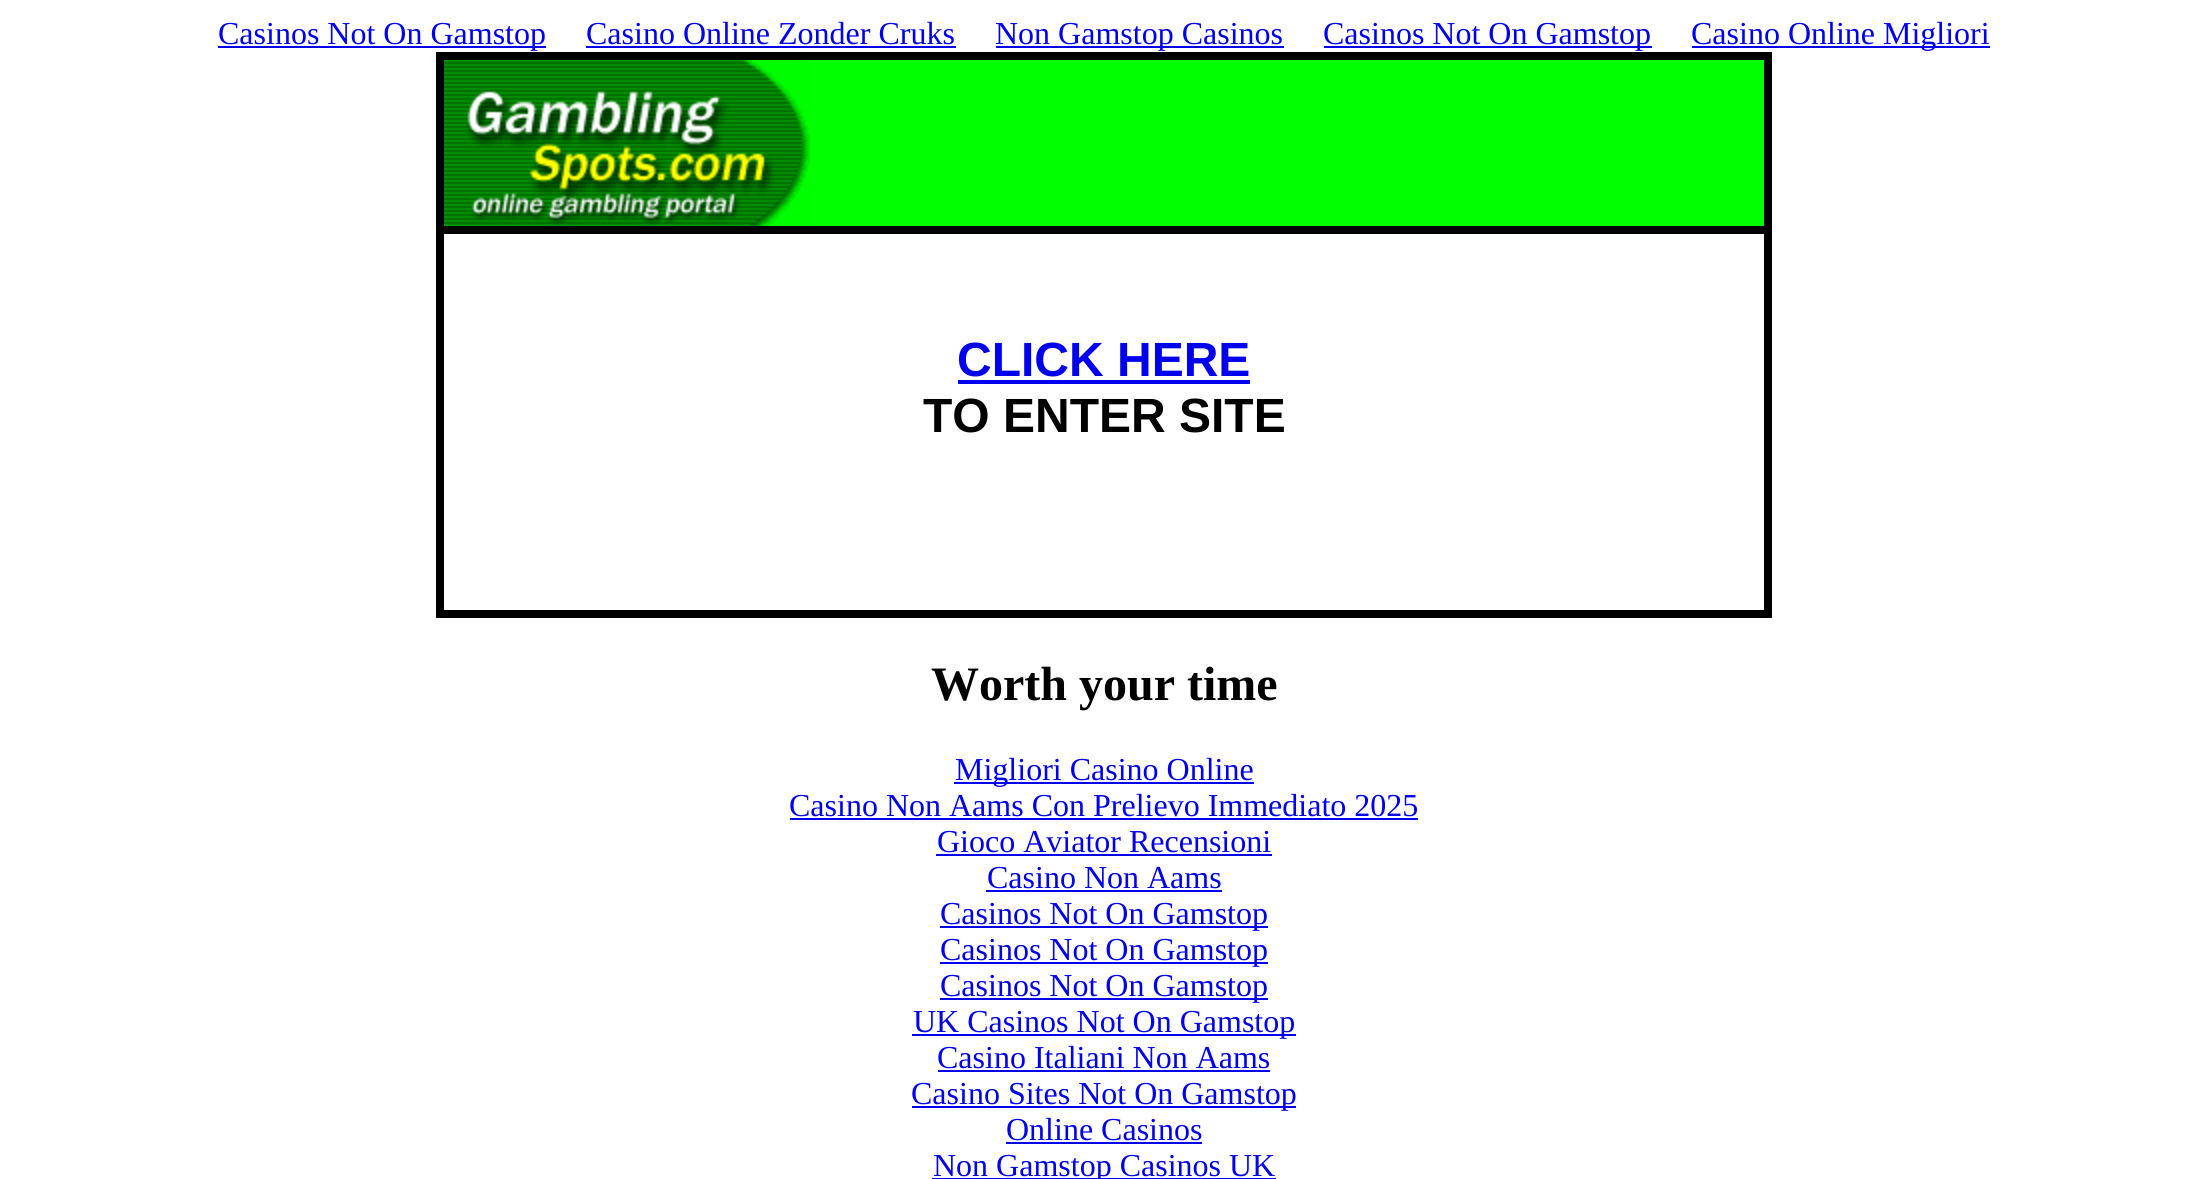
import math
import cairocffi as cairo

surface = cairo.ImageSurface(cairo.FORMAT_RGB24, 2208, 1179)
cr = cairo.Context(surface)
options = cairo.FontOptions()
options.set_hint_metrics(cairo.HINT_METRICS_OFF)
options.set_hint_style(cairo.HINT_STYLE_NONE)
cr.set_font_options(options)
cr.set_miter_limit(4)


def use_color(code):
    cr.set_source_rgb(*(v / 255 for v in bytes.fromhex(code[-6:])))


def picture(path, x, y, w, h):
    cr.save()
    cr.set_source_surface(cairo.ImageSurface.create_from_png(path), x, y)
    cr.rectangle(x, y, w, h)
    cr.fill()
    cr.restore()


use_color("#ffffff")
cr.paint()
use_color("#0000ee")
cr.rectangle(218, 46, 328, 2)
cr.fill()
cr.select_font_face("Liberation Serif")
cr.set_font_size(32)
cr.move_to(218, 44)
cr.show_text("Casinos Not On Gamstop")
cr.move_to(586, 44)
cr.show_text("Casino Online Zonder Cruks")
cr.rectangle(586, 46, 370, 2)
cr.fill()
cr.rectangle(996, 46, 288, 2)
cr.fill()
cr.move_to(995, 44)
cr.show_text("Non Gamstop Casinos")
cr.rectangle(1324, 46, 328, 2)
cr.fill()
cr.move_to(1323, 44)
cr.show_text("Casinos Not On Gamstop")
cr.rectangle(1692, 46, 298, 2)
cr.fill()
cr.move_to(1691, 44)
cr.show_text("Casino Online Migliori")
use_color("#000000")
cr.rectangle(436, 52, 1336, 8)
cr.fill()
cr.rectangle(436, 60, 8, 550)
cr.fill()
cr.rectangle(444, 226, 1320, 8)
cr.fill()
picture("img1.png", 444, 60, 366, 166)
use_color("#00ff00")
cr.rectangle(810, 60, 954, 166)
cr.fill()
use_color("#000000")
cr.rectangle(1764, 60, 8, 550)
cr.fill()
cr.select_font_face("Liberation Sans", cairo.FONT_SLANT_NORMAL, cairo.FONT_WEIGHT_BOLD)
cr.set_font_size(48)
use_color("#0000ee")
cr.move_to(957, 376)
cr.show_text("CLICK HERE")
cr.rectangle(958, 380, 292, 4)
cr.fill()
use_color("#000000")
cr.move_to(923, 432)
cr.show_text("TO ENTER SITE")
cr.rectangle(436, 610, 1336, 8)
cr.fill()
cr.select_font_face("Liberation Serif", cairo.FONT_SLANT_NORMAL, cairo.FONT_WEIGHT_BOLD)
cr.move_to(931, 700)
cr.show_text("Worth your time")
use_color("#0000ee")
cr.rectangle(954, 782, 300, 2)
cr.fill()
cr.select_font_face("Liberation Serif")
cr.set_font_size(32)
cr.move_to(955, 780)
cr.show_text("Migliori Casino Online")
cr.move_to(789, 816)
cr.show_text("Casino Non Aams Con Prelievo Immediato 2025")
cr.rectangle(790, 818, 628, 2)
cr.fill()
cr.move_to(937, 852)
cr.show_text("Gioco Aviator Recensioni")
cr.rectangle(936, 854, 336, 2)
cr.fill()
cr.move_to(987, 888)
cr.show_text("Casino Non Aams")
cr.rectangle(986, 890, 236, 2)
cr.fill()
cr.rectangle(940, 926, 328, 2)
cr.fill()
cr.move_to(940, 924)
cr.show_text("Casinos Not On Gamstop")
cr.rectangle(940, 962, 328, 2)
cr.fill()
cr.move_to(940, 960)
cr.show_text("Casinos Not On Gamstop")
cr.rectangle(940, 998, 328, 2)
cr.fill()
cr.move_to(940, 996)
cr.show_text("Casinos Not On Gamstop")
cr.rectangle(912, 1034, 384, 2)
cr.fill()
cr.move_to(913, 1032)
cr.show_text("UK Casinos Not On Gamstop")
cr.move_to(937, 1068)
cr.show_text("Casino Italiani Non Aams")
cr.rectangle(938, 1070, 332, 2)
cr.fill()
cr.rectangle(912, 1106, 384, 2)
cr.fill()
cr.move_to(911, 1104)
cr.show_text("Casino Sites Not On Gamstop")
cr.move_to(1006, 1140)
cr.show_text("Online Casinos")
cr.rectangle(1006, 1142, 196, 2)
cr.fill()
cr.rectangle(932, 1178, 344, 1)
cr.fill()
cr.move_to(933, 1176)
cr.show_text("Non Gamstop Casinos UK")
surface.write_to_png("result.png")
